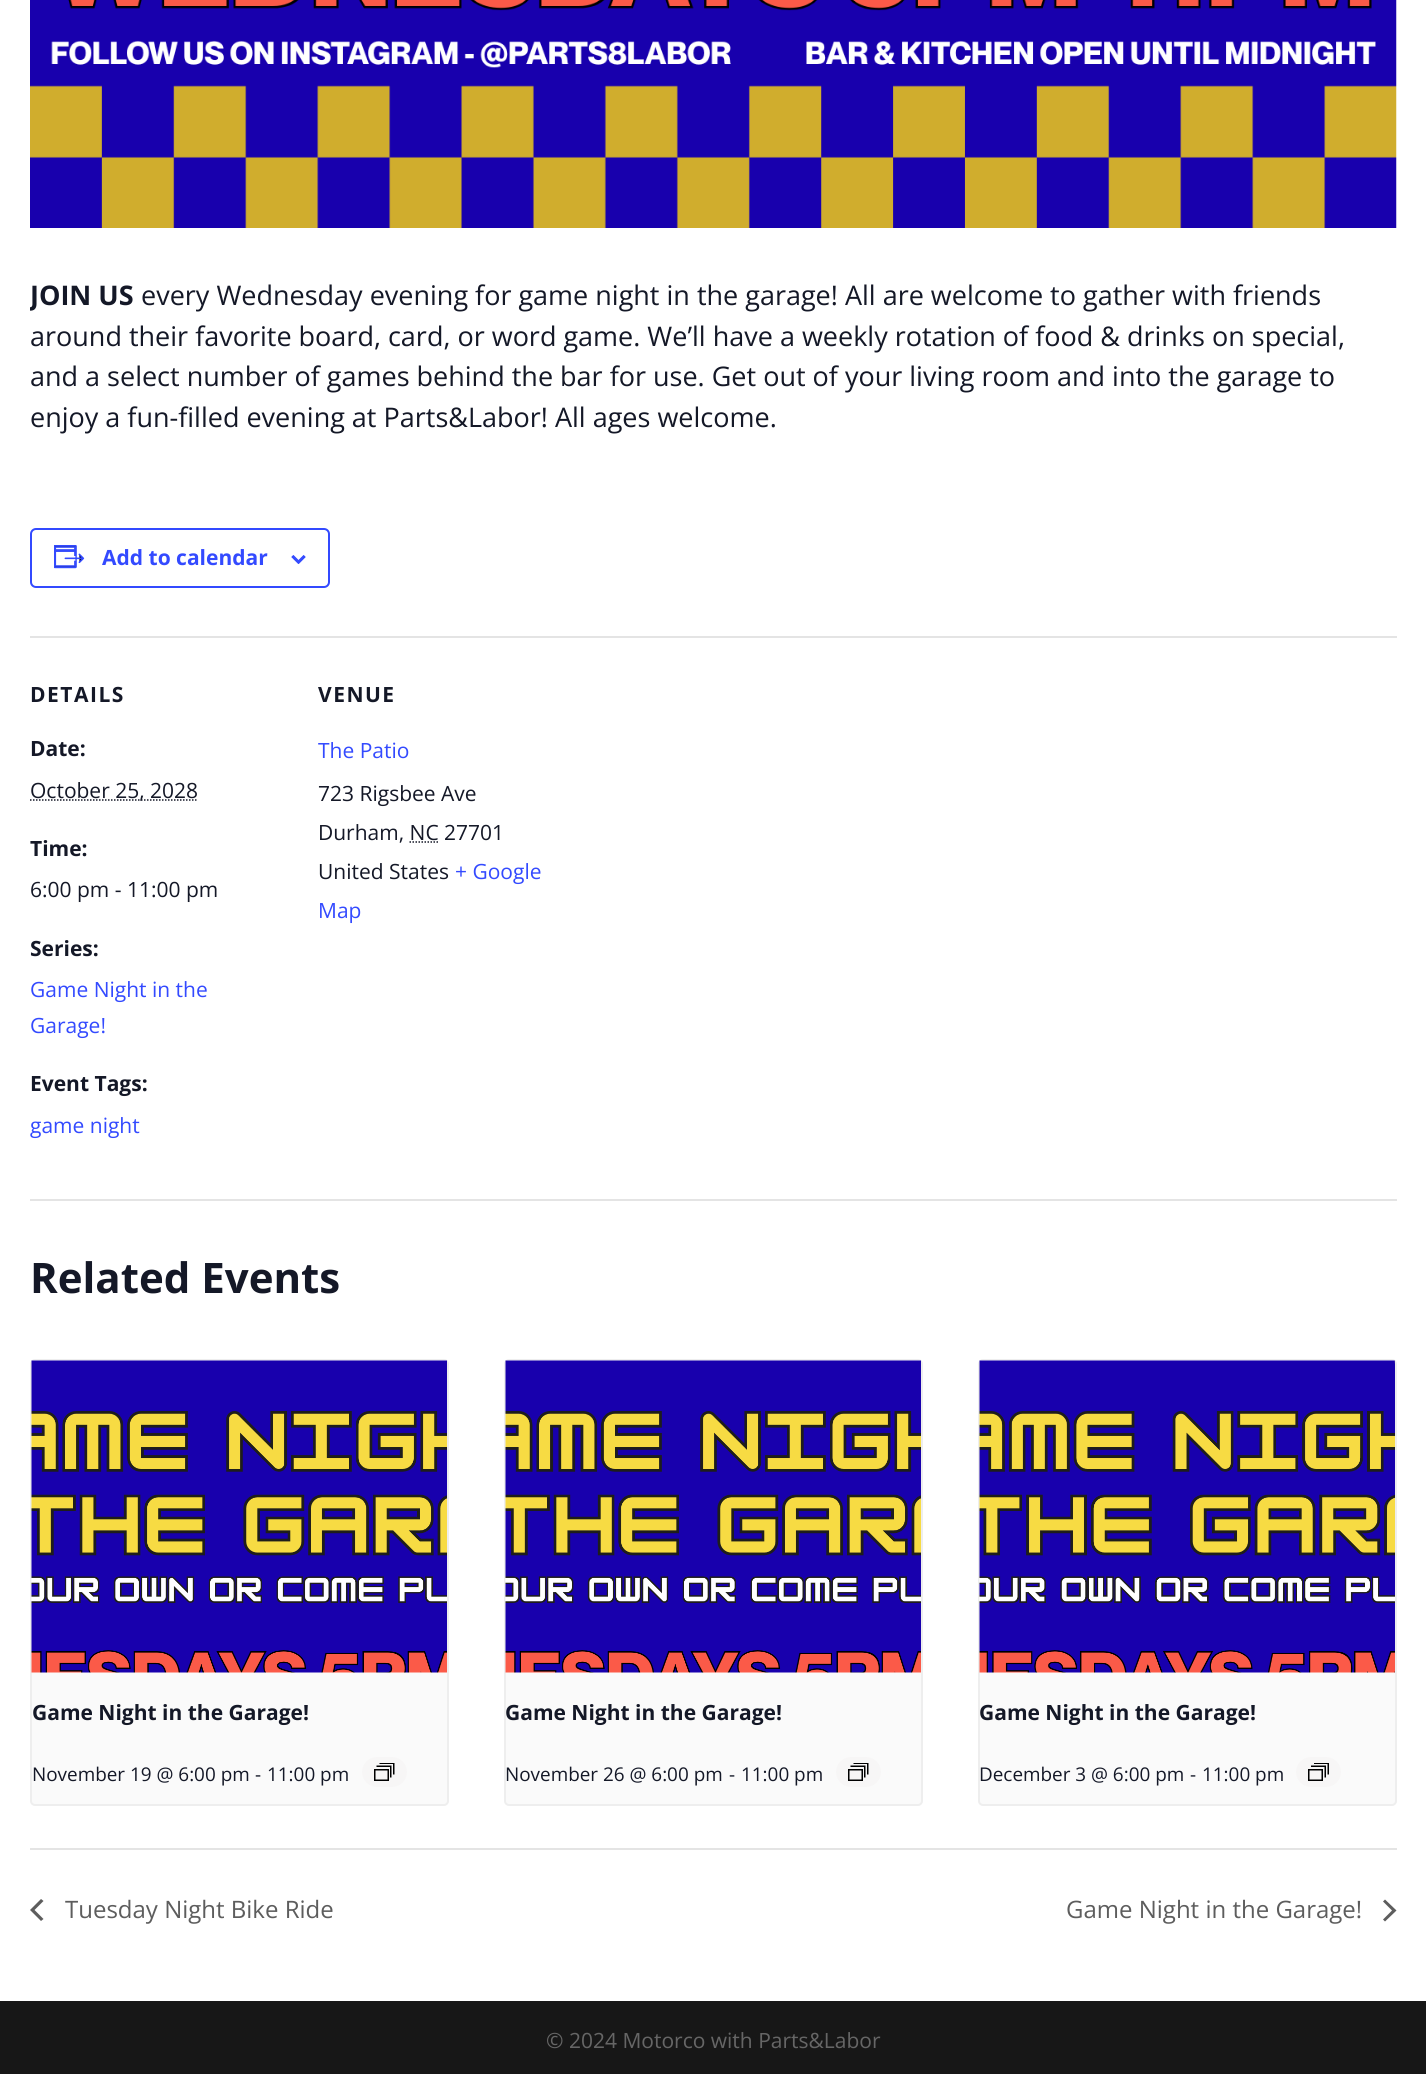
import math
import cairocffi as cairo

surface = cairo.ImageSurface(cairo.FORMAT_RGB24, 1426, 2074)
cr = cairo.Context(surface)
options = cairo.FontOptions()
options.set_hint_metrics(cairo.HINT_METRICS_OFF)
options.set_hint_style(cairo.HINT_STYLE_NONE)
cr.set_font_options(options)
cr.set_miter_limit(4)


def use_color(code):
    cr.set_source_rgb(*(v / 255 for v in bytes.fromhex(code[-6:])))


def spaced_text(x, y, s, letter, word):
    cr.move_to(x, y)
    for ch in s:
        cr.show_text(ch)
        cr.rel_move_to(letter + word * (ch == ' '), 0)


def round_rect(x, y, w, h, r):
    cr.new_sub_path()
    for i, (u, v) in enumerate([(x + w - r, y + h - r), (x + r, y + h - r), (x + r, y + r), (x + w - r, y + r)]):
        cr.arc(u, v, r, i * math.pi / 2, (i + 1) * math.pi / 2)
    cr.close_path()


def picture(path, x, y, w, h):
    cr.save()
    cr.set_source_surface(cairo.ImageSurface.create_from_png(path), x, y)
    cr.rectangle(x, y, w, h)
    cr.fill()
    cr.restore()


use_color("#ffffff")
cr.paint()
picture("img1.png", 30, 0, 1367, 228)
cr.save()
cr.rectangle(30, 0, 1367, 1848)
cr.clip()
cr.select_font_face("Open Sans", cairo.FONT_SLANT_NORMAL, cairo.FONT_WEIGHT_BOLD)
cr.set_font_size(27)
use_color("#141827")
cr.move_to(30, 305)
cr.show_text("JOIN US")
cr.restore()
cr.select_font_face("Open Sans")
cr.set_font_size(27)
use_color("#141827")
cr.move_to(141, 305)
cr.show_text("every Wednesday evening for game night in the garage! All are welcome to gather with friends")
cr.move_to(30, 346)
cr.show_text("around their favorite board, card, or word game. We’ll have a weekly rotation of food & drinks on special,")
cr.move_to(30, 386)
cr.show_text("and a select number of games behind the bar for use. Get out of your living room and into the garage to")
cr.move_to(30, 427)
cr.show_text("enjoy a fun-filled evening at Parts&Labor! All ages welcome.")
round_rect(31, 529, 298, 58, 5)
use_color("#334aff")
cr.stroke()
picture("img2.png", 54, 545, 31, 24)
cr.select_font_face("Open Sans", cairo.FONT_SLANT_NORMAL, cairo.FONT_WEIGHT_BOLD)
cr.set_font_size(21)
cr.move_to(102, 565)
cr.show_text("Add to calendar")
picture("img3.png", 291, 555, 15, 9)
use_color("#e4e4e4")
cr.rectangle(30, 636, 1367, 2)
cr.fill()
use_color("#141827")
spaced_text(30, 702, "DETAILS", 1.5, 0)
cr.move_to(30, 756)
cr.show_text("Date:")
cr.new_path()
cr.move_to(30, 800)
cr.line_to(198, 800)
cr.set_line_width(1.5)
cr.set_dash([1.5, 1.5])
cr.stroke()
cr.select_font_face("Open Sans")
cr.move_to(30, 798)
cr.show_text("October 25, 2028")
cr.select_font_face("Open Sans", cairo.FONT_SLANT_NORMAL, cairo.FONT_WEIGHT_BOLD)
cr.move_to(30, 856)
cr.show_text("Time:")
cr.select_font_face("Open Sans")
cr.move_to(30, 897)
cr.show_text("6:00 pm - 11:00 pm")
cr.select_font_face("Open Sans", cairo.FONT_SLANT_NORMAL, cairo.FONT_WEIGHT_BOLD)
cr.move_to(30, 956)
cr.show_text("Series:")
cr.select_font_face("Open Sans")
use_color("#334aff")
cr.move_to(30, 997)
cr.show_text("Game Night in the")
cr.move_to(30, 1033)
cr.show_text("Garage!")
cr.select_font_face("Open Sans", cairo.FONT_SLANT_NORMAL, cairo.FONT_WEIGHT_BOLD)
use_color("#141827")
cr.move_to(30, 1091)
cr.show_text("Event Tags:")
cr.select_font_face("Open Sans")
use_color("#334aff")
cr.move_to(30, 1133)
cr.show_text("game night")
cr.select_font_face("Open Sans", cairo.FONT_SLANT_NORMAL, cairo.FONT_WEIGHT_BOLD)
use_color("#141827")
spaced_text(318, 702, "VENUE", 1.5, 0)
cr.select_font_face("Open Sans")
use_color("#334aff")
cr.move_to(318, 758)
cr.show_text("The Patio")
use_color("#141827")
cr.move_to(318, 801)
cr.show_text("723 Rigsbee Ave")
cr.move_to(318, 840)
cr.show_text("Durham, NC 27701")
cr.new_path()
cr.move_to(409.5, 842)
cr.line_to(438.5, 842)
cr.stroke()
cr.move_to(318, 879)
cr.show_text("United States")
use_color("#334aff")
cr.move_to(455, 879)
cr.show_text("+ Google")
cr.move_to(318, 918)
cr.show_text("Map")
use_color("#e4e4e4")
cr.rectangle(30, 1199, 1367, 2)
cr.fill()
cr.select_font_face("Open Sans", cairo.FONT_SLANT_NORMAL, cairo.FONT_WEIGHT_BOLD)
cr.set_font_size(42)
use_color("#141827")
cr.move_to(30, 1293)
cr.show_text("Related Events")
use_color("#fafafa")
round_rect(31, 1360, 417, 445, 4)
cr.fill_preserve()
use_color("#eeeeee")
cr.set_line_width(2)
cr.set_dash([])
cr.stroke()
picture("img4.png", 31, 1360, 416, 313)
cr.set_font_size(21)
use_color("#141827")
cr.move_to(32, 1720)
cr.show_text("Game Night in the Garage!")
cr.select_font_face("Open Sans")
cr.set_font_size(18.9)
cr.move_to(32, 1781)
cr.show_text("November 19 @ 6:00 pm")
cr.move_to(255, 1781)
cr.show_text("-")
cr.move_to(267, 1781)
cr.show_text("11:00 pm")
use_color("#f7f6f6")
round_rect(362, 1757, 45, 30, 15)
cr.fill()
picture("img5.png", 374, 1763, 21, 18)
use_color("#fafafa")
round_rect(505, 1360, 417, 445, 4)
cr.fill_preserve()
use_color("#eeeeee")
cr.stroke()
picture("img6.png", 505, 1360, 416, 313)
cr.select_font_face("Open Sans", cairo.FONT_SLANT_NORMAL, cairo.FONT_WEIGHT_BOLD)
cr.set_font_size(21)
use_color("#141827")
cr.move_to(505, 1720)
cr.show_text("Game Night in the Garage!")
cr.select_font_face("Open Sans")
cr.set_font_size(18.9)
cr.move_to(505, 1781)
cr.show_text("November 26 @ 6:00 pm")
cr.move_to(729, 1781)
cr.show_text("-")
cr.move_to(741, 1781)
cr.show_text("11:00 pm")
use_color("#f7f6f6")
round_rect(836, 1757, 45, 30, 15)
cr.fill()
picture("img5.png", 848, 1763, 21, 18)
use_color("#fafafa")
round_rect(979, 1360, 417, 445, 4)
cr.fill_preserve()
use_color("#eeeeee")
cr.stroke()
picture("img7.png", 979, 1360, 416, 313)
cr.select_font_face("Open Sans", cairo.FONT_SLANT_NORMAL, cairo.FONT_WEIGHT_BOLD)
cr.set_font_size(21)
use_color("#141827")
cr.move_to(979, 1720)
cr.show_text("Game Night in the Garage!")
cr.select_font_face("Open Sans")
cr.set_font_size(18.9)
cr.move_to(979, 1781)
cr.show_text("December 3 @ 6:00 pm")
cr.move_to(1190, 1781)
cr.show_text("-")
cr.move_to(1202, 1781)
cr.show_text("11:00 pm")
use_color("#f7f6f6")
round_rect(1296, 1757, 45, 30, 15)
cr.fill()
picture("img8.png", 1308, 1763, 21, 18)
use_color("#e4e4e4")
cr.rectangle(30, 1848, 1367, 2)
cr.fill()
use_color("#5d5d5d")
cr.new_path()
cr.move_to(43.5, 1919)
cr.line_to(41, 1921)
cr.line_to(30, 1910)
cr.line_to(41, 1899)
cr.line_to(43.5, 1901)
cr.line_to(34.5, 1910)
cr.close_path()
cr.fill()
cr.set_font_size(24)
cr.move_to(65, 1918)
cr.show_text("Tuesday Night Bike Ride")
cr.move_to(1066, 1918)
cr.show_text("Game Night in the Garage!")
cr.new_path()
cr.move_to(1383, 1901.5)
cr.line_to(1385, 1899.5)
cr.line_to(1396.5, 1910.5)
cr.line_to(1385, 1921.5)
cr.line_to(1383, 1919.5)
cr.line_to(1392, 1910.5)
cr.close_path()
cr.fill()
use_color("#171717")
cr.rectangle(0, 2001, 1426, 73)
cr.fill()
cr.set_font_size(21)
use_color("#666666")
cr.move_to(546, 2048)
cr.show_text("© 2024 Motorco with Parts&Labor")
surface.write_to_png("result.png")
